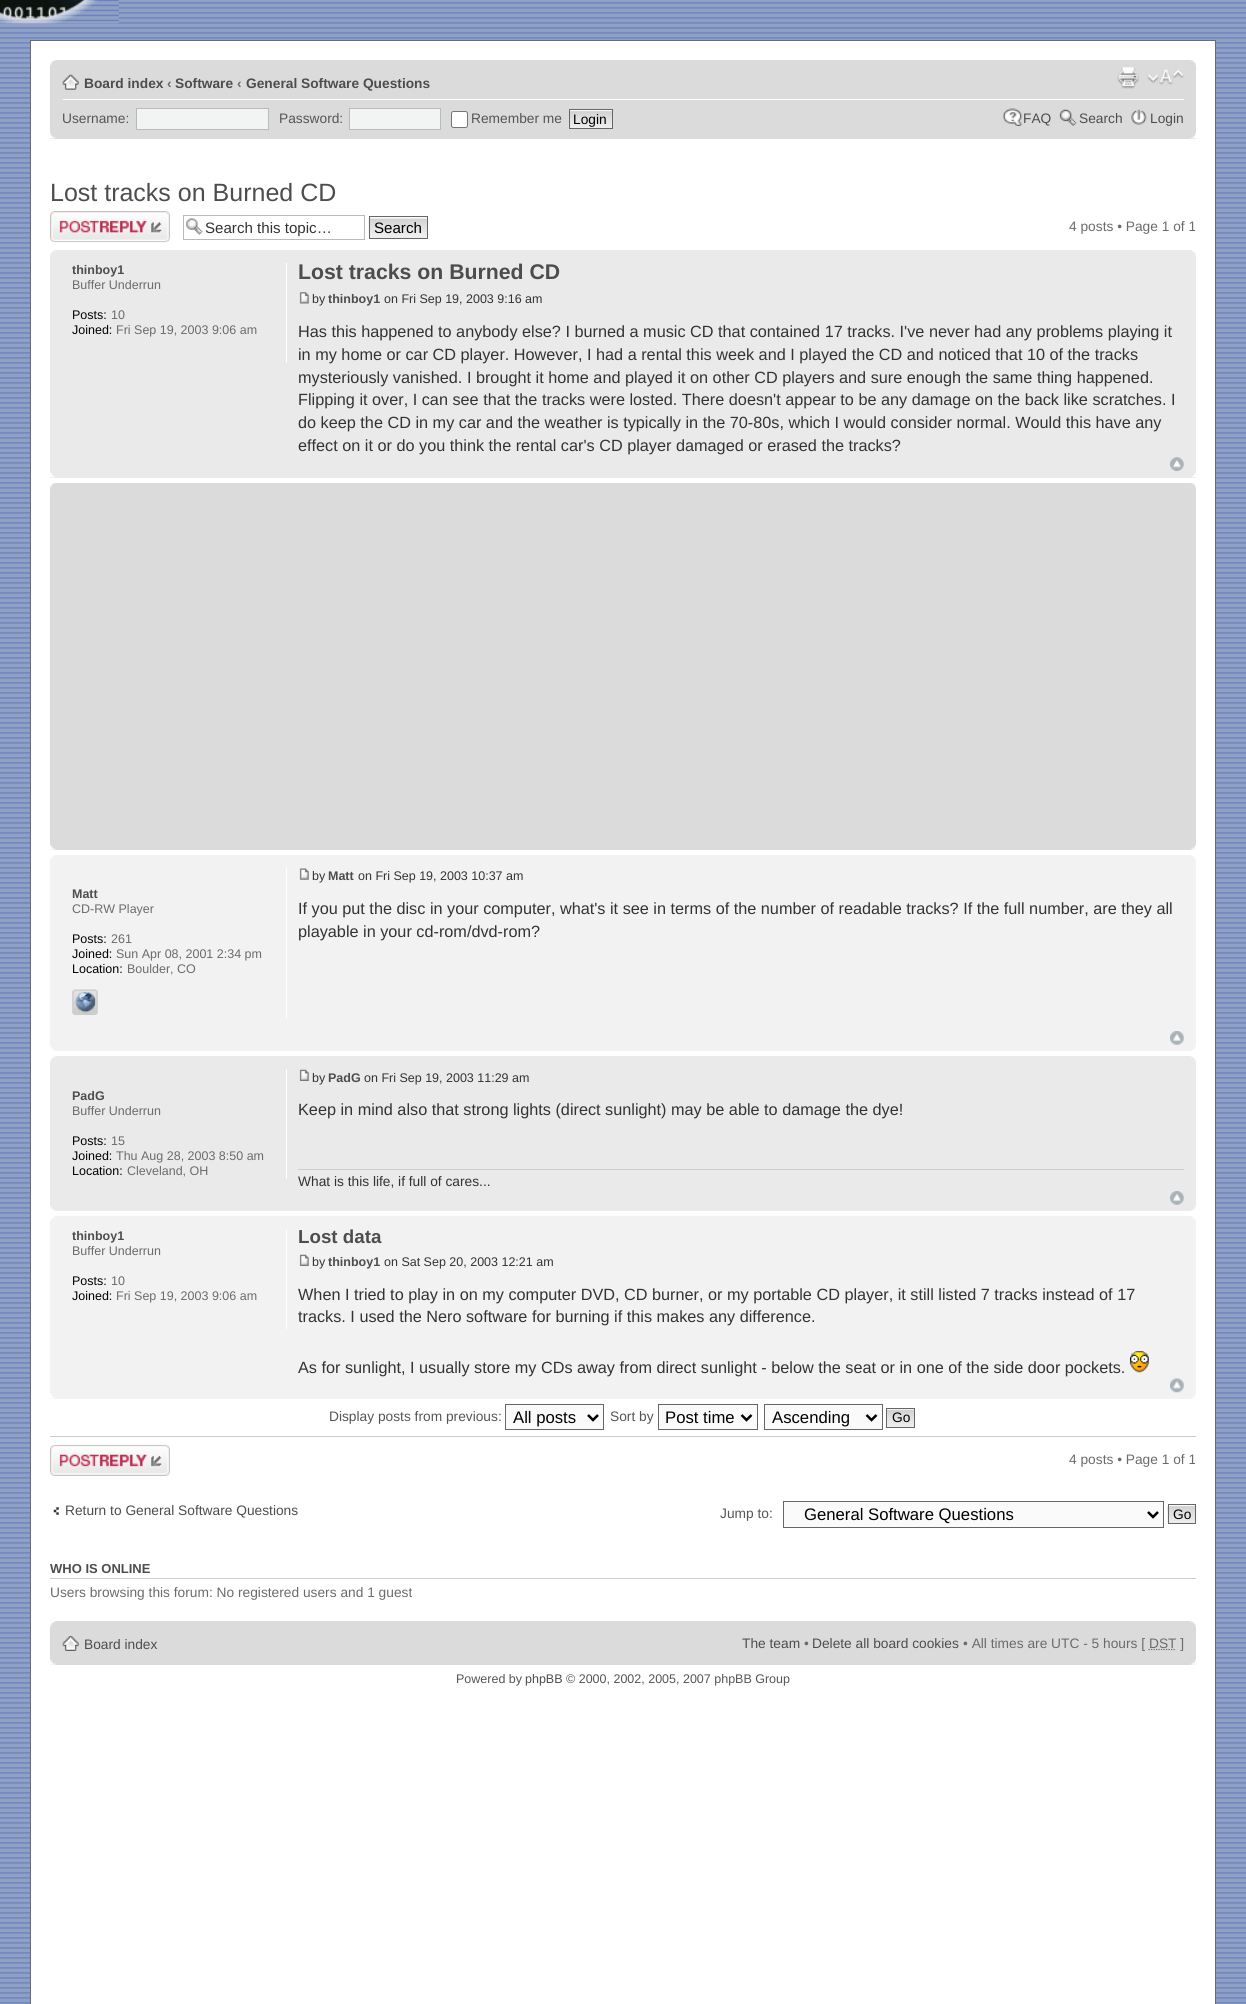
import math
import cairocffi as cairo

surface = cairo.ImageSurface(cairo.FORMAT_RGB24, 1246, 2004)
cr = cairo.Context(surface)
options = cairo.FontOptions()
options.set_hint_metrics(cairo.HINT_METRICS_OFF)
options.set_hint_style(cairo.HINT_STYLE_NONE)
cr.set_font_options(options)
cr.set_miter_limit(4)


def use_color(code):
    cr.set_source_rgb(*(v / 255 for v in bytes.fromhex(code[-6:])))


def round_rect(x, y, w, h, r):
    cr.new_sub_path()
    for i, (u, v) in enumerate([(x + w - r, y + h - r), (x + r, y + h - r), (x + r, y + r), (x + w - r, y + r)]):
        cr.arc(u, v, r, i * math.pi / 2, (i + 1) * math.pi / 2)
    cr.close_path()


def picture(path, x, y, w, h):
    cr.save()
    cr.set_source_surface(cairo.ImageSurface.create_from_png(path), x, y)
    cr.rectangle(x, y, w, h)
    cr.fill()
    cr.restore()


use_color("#ffffff")
cr.paint()
picture("img1.png", 0, 0, 1246, 2004)
picture("img2.png", 0, 0, 119, 24)
use_color("#ffffff")
cr.rectangle(30.5, 40.5, 1185, 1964)
cr.fill_preserve()
use_color("#6b6b6b")
cr.set_line_width(1)
cr.stroke()
use_color("#dbdbdb")
cr.rectangle(50, 60, 1146, 79)
cr.fill()
picture("img3.png", 50, 60, 6, 6)
picture("img4.png", 1190, 60, 6, 6)
use_color("#ffffff")
cr.rectangle(63, 99, 1121, 1)
cr.fill()
picture("img5.png", 62, 74, 17, 16)
cr.select_font_face("Liberation Sans", cairo.FONT_SLANT_NORMAL, cairo.FONT_WEIGHT_BOLD)
cr.set_font_size(13.75)
use_color("#4d4d4d")
cr.move_to(84, 88)
cr.show_text("Board index")
use_color("#6b6b6b")
cr.move_to(167, 88)
cr.show_text("‹")
use_color("#4d4d4d")
cr.move_to(175, 88)
cr.show_text("Software")
use_color("#6b6b6b")
cr.move_to(237, 88)
cr.show_text("‹")
use_color("#4d4d4d")
cr.move_to(246, 88)
cr.show_text("General Software Questions")
picture("img6.png", 1117, 67, 22, 22)
picture("img7.png", 1147, 69, 37, 16)
cr.select_font_face("Liberation Sans")
use_color("#555555")
cr.move_to(62, 123)
cr.show_text("Username:")
use_color("#f2f3f3")
cr.rectangle(136.5, 108.5, 132, 21)
cr.fill_preserve()
use_color("#bababa")
cr.stroke()
use_color("#555555")
cr.move_to(279, 123)
cr.show_text("Password:")
use_color("#f2f3f3")
cr.rectangle(349.5, 108.5, 91, 21)
cr.fill_preserve()
use_color("#bababa")
cr.stroke()
use_color("#ffffff")
round_rect(451.5, 111.5, 16, 16, 2)
cr.fill_preserve()
use_color("#767676")
cr.stroke()
use_color("#555555")
cr.move_to(471, 123)
cr.show_text("Remember me")
picture("img8.png", 568, 110, 44, 19)
cr.rectangle(569.5, 109.5, 43, 19)
use_color("#666666")
cr.stroke()
use_color("#000000")
cr.move_to(573, 124)
cr.show_text("Login")
picture("img9.png", 1002, 108, 21, 18)
use_color("#4d4d4d")
cr.move_to(1023, 123)
cr.show_text("FAQ")
picture("img10.png", 1059, 109, 18, 17)
cr.move_to(1079, 123)
cr.show_text("Search")
picture("img11.png", 1131, 109, 16, 16)
cr.move_to(1150, 123)
cr.show_text("Login")
picture("img12.png", 50, 132, 6, 7)
picture("img13.png", 1190, 132, 6, 7)
cr.set_font_size(25)
cr.move_to(50, 201)
cr.show_text("Lost tracks on Burned CD")
picture("img14.png", 50, 211, 120, 32)
picture("img15.png", 186, 218, 17, 17)
cr.rectangle(183.5, 215.5, 181, 24)
use_color("#bababa")
cr.stroke()
cr.set_font_size(15.1)
use_color("#333333")
cr.move_to(205, 233)
cr.show_text("Search this topic…")
use_color("#fafafa")
cr.rectangle(370, 217, 57, 1)
cr.fill()
picture("img16.png", 368, 218, 59, 21)
cr.rectangle(369.5, 216.5, 58, 22)
use_color("#666666")
cr.stroke()
use_color("#000000")
cr.move_to(374, 233)
cr.show_text("Search")
cr.set_font_size(13.75)
use_color("#6b6b6b")
cr.move_to(1069, 231)
cr.show_text("4 posts • Page 1 of 1")
use_color("#eaeaea")
cr.rectangle(50, 250, 1146, 228)
cr.fill()
picture("img17.png", 50, 250, 6, 6)
picture("img18.png", 1190, 250, 6, 6)
use_color("#ffffff")
cr.rectangle(286, 263, 1, 100)
cr.fill()
cr.select_font_face("Liberation Sans", cairo.FONT_SLANT_NORMAL, cairo.FONT_WEIGHT_BOLD)
cr.set_font_size(12.5)
use_color("#4d4d4d")
cr.move_to(72, 274)
cr.show_text("thinboy1")
cr.select_font_face("Liberation Sans")
use_color("#6b6b6b")
cr.move_to(72, 289)
cr.show_text("Buffer Underrun")
use_color("#000000")
cr.move_to(72, 319)
cr.show_text("Posts:")
use_color("#6b6b6b")
cr.move_to(111, 319)
cr.show_text("10")
use_color("#000000")
cr.move_to(72, 334)
cr.show_text("Joined:")
use_color("#6b6b6b")
cr.move_to(116, 334)
cr.show_text("Fri Sep 19, 2003 9:06 am")
cr.select_font_face("Liberation Sans", cairo.FONT_SLANT_NORMAL, cairo.FONT_WEIGHT_BOLD)
cr.set_font_size(21.25)
use_color("#4d4d4d")
cr.move_to(298, 279)
cr.show_text("Lost tracks on Burned CD")
picture("img19.png", 299, 292, 10, 12)
cr.select_font_face("Liberation Sans")
cr.set_font_size(12.5)
use_color("#333333")
cr.move_to(312, 303)
cr.show_text("by")
cr.select_font_face("Liberation Sans", cairo.FONT_SLANT_NORMAL, cairo.FONT_WEIGHT_BOLD)
use_color("#4d4d4d")
cr.move_to(328, 303)
cr.show_text("thinboy1")
cr.select_font_face("Liberation Sans")
use_color("#333333")
cr.move_to(384, 303)
cr.show_text("on Fri Sep 19, 2003 9:16 am")
cr.set_font_size(16.25)
cr.move_to(298, 337)
cr.show_text("Has this happened to anybody else? I burned a music CD that contained 17 tracks. I've never had any problems playing it")
cr.move_to(298, 360)
cr.show_text("in my home or car CD player. However, I had a rental this week and I played the CD and noticed that 10 of the tracks")
cr.move_to(298, 383)
cr.show_text("mysteriously vanished. I brought it home and played it on other CD players and sure enough the same thing happened.")
cr.move_to(298, 405)
cr.show_text("Flipping it over, I can see that the tracks were losted. There doesn't appear to be any damage on the back like scratches. I")
cr.move_to(298, 428)
cr.show_text("do keep the CD in my car and the weather is typically in the 70-80s, which I would consider normal. Would this have any")
cr.move_to(298, 451)
cr.show_text("effect on it or do you think the rental car's CD player damaged or erased the tracks?")
picture("img20.png", 1170, 457, 14, 14)
picture("img21.png", 50, 471, 6, 7)
picture("img22.png", 1191, 471, 5, 7)
use_color("#dbdbdb")
cr.rectangle(50, 483, 1146, 367)
cr.fill()
picture("img23.png", 50, 483, 6, 6)
picture("img24.png", 1191, 483, 5, 5)
picture("img25.png", 50, 844, 6, 6)
picture("img26.png", 1190, 844, 6, 6)
use_color("#f2f2f2")
cr.rectangle(50, 855, 1146, 196)
cr.fill()
picture("img27.png", 50, 855, 5, 5)
picture("img28.png", 1191, 855, 5, 5)
use_color("#ffffff")
cr.rectangle(286, 868, 1, 151)
cr.fill()
cr.select_font_face("Liberation Sans", cairo.FONT_SLANT_NORMAL, cairo.FONT_WEIGHT_BOLD)
cr.set_font_size(12.5)
use_color("#4d4d4d")
cr.move_to(72, 898)
cr.show_text("Matt")
cr.select_font_face("Liberation Sans")
use_color("#6b6b6b")
cr.move_to(72, 913)
cr.show_text("CD-RW Player")
use_color("#000000")
cr.move_to(72, 943)
cr.show_text("Posts:")
use_color("#6b6b6b")
cr.move_to(111, 943)
cr.show_text("261")
use_color("#000000")
cr.move_to(72, 958)
cr.show_text("Joined:")
use_color("#6b6b6b")
cr.move_to(116, 958)
cr.show_text("Sun Apr 08, 2001 2:34 pm")
use_color("#000000")
cr.move_to(72, 973)
cr.show_text("Location:")
use_color("#6b6b6b")
cr.move_to(127, 973)
cr.show_text("Boulder, CO")
picture("img29.png", 72, 989, 26, 26)
picture("img30.png", 72, 989, 26, 26)
picture("img31.png", 299, 868, 10, 12)
use_color("#333333")
cr.move_to(312, 880)
cr.show_text("by")
cr.select_font_face("Liberation Sans", cairo.FONT_SLANT_NORMAL, cairo.FONT_WEIGHT_BOLD)
use_color("#4d4d4d")
cr.move_to(328, 880)
cr.show_text("Matt")
cr.select_font_face("Liberation Sans")
use_color("#333333")
cr.move_to(358, 880)
cr.show_text("on Fri Sep 19, 2003 10:37 am")
cr.set_font_size(16.25)
cr.move_to(298, 914)
cr.show_text("If you put the disc in your computer, what's it see in terms of the number of readable tracks? If the full number, are they all")
cr.move_to(298, 937)
cr.show_text("playable in your cd-rom/dvd-rom?")
picture("img32.png", 1170, 1031, 14, 14)
picture("img33.png", 50, 1046, 5, 5)
picture("img34.png", 1191, 1046, 5, 5)
use_color("#eaeaea")
cr.rectangle(50, 1056, 1146, 155)
cr.fill()
picture("img35.png", 50, 1056, 6, 6)
picture("img36.png", 1190, 1056, 6, 6)
use_color("#ffffff")
cr.rectangle(286, 1069, 1, 110)
cr.fill()
cr.select_font_face("Liberation Sans", cairo.FONT_SLANT_NORMAL, cairo.FONT_WEIGHT_BOLD)
cr.set_font_size(12.5)
use_color("#4d4d4d")
cr.move_to(72, 1100)
cr.show_text("PadG")
cr.select_font_face("Liberation Sans")
use_color("#6b6b6b")
cr.move_to(72, 1115)
cr.show_text("Buffer Underrun")
use_color("#000000")
cr.move_to(72, 1145)
cr.show_text("Posts:")
use_color("#6b6b6b")
cr.move_to(111, 1145)
cr.show_text("15")
use_color("#000000")
cr.move_to(72, 1160)
cr.show_text("Joined:")
use_color("#6b6b6b")
cr.move_to(116, 1160)
cr.show_text("Thu Aug 28, 2003 8:50 am")
use_color("#000000")
cr.move_to(72, 1175)
cr.show_text("Location:")
use_color("#6b6b6b")
cr.move_to(127, 1175)
cr.show_text("Cleveland, OH")
picture("img37.png", 299, 1069, 10, 12)
use_color("#333333")
cr.move_to(312, 1082)
cr.show_text("by")
cr.select_font_face("Liberation Sans", cairo.FONT_SLANT_NORMAL, cairo.FONT_WEIGHT_BOLD)
use_color("#4d4d4d")
cr.move_to(328, 1082)
cr.show_text("PadG")
cr.select_font_face("Liberation Sans")
use_color("#333333")
cr.move_to(364, 1082)
cr.show_text("on Fri Sep 19, 2003 11:29 am")
cr.set_font_size(16.25)
cr.move_to(298, 1115)
cr.show_text("Keep in mind also that strong lights (direct sunlight) may be able to damage the dye!")
use_color("#cccccc")
cr.rectangle(298, 1169, 886, 1)
cr.fill()
cr.set_font_size(13.75)
use_color("#333333")
cr.move_to(298, 1186)
cr.show_text("What is this life, if full of cares...")
picture("img38.png", 1170, 1191, 14, 14)
picture("img39.png", 50, 1205, 6, 6)
picture("img40.png", 1190, 1205, 6, 6)
use_color("#f2f2f2")
cr.rectangle(50, 1216, 1146, 183)
cr.fill()
picture("img41.png", 50, 1216, 5, 5)
picture("img42.png", 1191, 1216, 5, 5)
use_color("#ffffff")
cr.rectangle(286, 1229, 1, 100)
cr.fill()
cr.select_font_face("Liberation Sans", cairo.FONT_SLANT_NORMAL, cairo.FONT_WEIGHT_BOLD)
cr.set_font_size(12.5)
use_color("#4d4d4d")
cr.move_to(72, 1240)
cr.show_text("thinboy1")
cr.select_font_face("Liberation Sans")
use_color("#6b6b6b")
cr.move_to(72, 1255)
cr.show_text("Buffer Underrun")
use_color("#000000")
cr.move_to(72, 1285)
cr.show_text("Posts:")
use_color("#6b6b6b")
cr.move_to(111, 1285)
cr.show_text("10")
use_color("#000000")
cr.move_to(72, 1300)
cr.show_text("Joined:")
use_color("#6b6b6b")
cr.move_to(116, 1300)
cr.show_text("Fri Sep 19, 2003 9:06 am")
cr.select_font_face("Liberation Sans", cairo.FONT_SLANT_NORMAL, cairo.FONT_WEIGHT_BOLD)
cr.set_font_size(18.75)
use_color("#4d4d4d")
cr.move_to(298, 1243)
cr.show_text("Lost data")
picture("img43.png", 299, 1254, 10, 12)
cr.select_font_face("Liberation Sans")
cr.set_font_size(12.5)
use_color("#333333")
cr.move_to(312, 1266)
cr.show_text("by")
cr.select_font_face("Liberation Sans", cairo.FONT_SLANT_NORMAL, cairo.FONT_WEIGHT_BOLD)
use_color("#4d4d4d")
cr.move_to(328, 1266)
cr.show_text("thinboy1")
cr.select_font_face("Liberation Sans")
use_color("#333333")
cr.move_to(384, 1266)
cr.show_text("on Sat Sep 20, 2003 12:21 am")
cr.set_font_size(16.25)
cr.move_to(298, 1300)
cr.show_text("When I tried to play in on my computer DVD, CD burner, or my portable CD player, it still listed 7 tracks instead of 17")
cr.move_to(298, 1322)
cr.show_text("tracks. I used the Nero software for burning if this makes any difference.")
cr.move_to(298, 1373)
cr.show_text("As for sunlight, I usually store my CDs away from direct sunlight - below the seat or in one of the side door pockets.")
picture("img44.png", 1130, 1351, 19, 22)
picture("img45.png", 1170, 1378, 14, 15)
picture("img46.png", 50, 1393, 5, 6)
picture("img47.png", 1191, 1393, 5, 6)
cr.set_font_size(13.75)
use_color("#555555")
cr.move_to(329, 1421)
cr.show_text("Display posts from previous:")
use_color("#fafafa")
cr.rectangle(505.5, 1404.5, 98, 25)
cr.fill_preserve()
use_color("#666666")
cr.stroke()
cr.new_path()
cr.move_to(588, 1415)
cr.line_to(593, 1420)
cr.line_to(598, 1415)
use_color("#000000")
cr.set_line_width(2.5)
cr.stroke()
cr.set_font_size(16.7)
cr.move_to(513, 1423)
cr.show_text("All posts")
cr.set_font_size(13.75)
use_color("#555555")
cr.move_to(610, 1421)
cr.show_text("Sort by")
use_color("#fafafa")
cr.rectangle(658.5, 1404.5, 99, 25)
cr.fill_preserve()
use_color("#666666")
cr.set_line_width(1)
cr.stroke()
cr.new_path()
cr.move_to(741.5, 1415)
cr.line_to(746.5, 1420)
cr.line_to(751.5, 1415)
use_color("#000000")
cr.set_line_width(2.5)
cr.stroke()
cr.set_font_size(16.7)
cr.move_to(665, 1423)
cr.show_text("Post time")
use_color("#fafafa")
cr.rectangle(764.5, 1404.5, 118, 25)
cr.fill_preserve()
use_color("#666666")
cr.set_line_width(1)
cr.stroke()
cr.new_path()
cr.move_to(866.5, 1415)
cr.line_to(871.5, 1420)
cr.line_to(876.5, 1415)
use_color("#000000")
cr.set_line_width(2.5)
cr.stroke()
cr.move_to(772, 1423)
cr.show_text("Ascending")
picture("img48.png", 887, 1409, 27, 18)
cr.rectangle(886.5, 1408.5, 28, 19)
use_color("#666666")
cr.set_line_width(1)
cr.stroke()
cr.set_font_size(13.75)
use_color("#000000")
cr.move_to(892, 1422)
cr.show_text("Go")
use_color("#cccccc")
cr.rectangle(50, 1436, 1146, 1)
cr.fill()
picture("img49.png", 50, 1444, 120, 32)
use_color("#6b6b6b")
cr.move_to(1069, 1464)
cr.show_text("4 posts • Page 1 of 1")
picture("img50.png", 53, 1507, 6, 8)
use_color("#4d4d4d")
cr.move_to(65, 1515)
cr.show_text("Return to General Software Questions")
use_color("#555555")
cr.move_to(720, 1518)
cr.show_text("Jump to:")
use_color("#fafafa")
cr.rectangle(783.5, 1501.5, 380, 26)
cr.fill_preserve()
use_color("#666666")
cr.stroke()
cr.new_path()
cr.move_to(1148, 1512)
cr.line_to(1153, 1517)
cr.line_to(1158, 1512)
use_color("#000000")
cr.set_line_width(2.5)
cr.stroke()
cr.set_font_size(16.7)
cr.move_to(804, 1520)
cr.show_text("General Software Questions")
use_color("#fafafa")
cr.rectangle(1169, 1505, 26, 1)
cr.fill()
picture("img51.png", 1167, 1506, 30, 18)
cr.rectangle(1168.5, 1504.5, 27, 19)
use_color("#666666")
cr.set_line_width(1)
cr.stroke()
cr.set_font_size(13.75)
use_color("#000000")
cr.move_to(1173, 1519)
cr.show_text("Go")
use_color("#cccccc")
cr.rectangle(50, 1578, 1146, 1)
cr.fill()
cr.select_font_face("Liberation Sans", cairo.FONT_SLANT_NORMAL, cairo.FONT_WEIGHT_BOLD)
cr.set_font_size(13)
use_color("#4d4d4d")
cr.move_to(50, 1573)
cr.show_text("WHO IS ONLINE")
cr.select_font_face("Liberation Sans")
cr.set_font_size(13.75)
use_color("#6b6b6b")
cr.move_to(50, 1597)
cr.show_text("Users browsing this forum: No registered users and 1 guest")
use_color("#dbdbdb")
cr.rectangle(50, 1621, 1146, 44)
cr.fill()
picture("img52.png", 50, 1621, 6, 6)
picture("img53.png", 1190, 1621, 6, 6)
picture("img54.png", 62, 1636, 17, 15)
use_color("#4d4d4d")
cr.move_to(84, 1649)
cr.show_text("Board index")
cr.move_to(742, 1648)
cr.show_text("The team")
use_color("#6b6b6b")
cr.move_to(804, 1648)
cr.show_text("•")
use_color("#4d4d4d")
cr.move_to(812, 1648)
cr.show_text("Delete all board cookies")
use_color("#6b6b6b")
cr.move_to(963, 1648)
cr.show_text("• All times are UTC - 5 hours [")
cr.new_path()
cr.move_to(1148.5, 1649.5)
cr.line_to(1176, 1649.5)
cr.set_line_width(1.2)
cr.set_dash([1.25, 1.25])
cr.stroke()
cr.move_to(1149, 1648)
cr.show_text("DST ]")
picture("img25.png", 50, 1659, 6, 6)
picture("img26.png", 1190, 1659, 6, 6)
cr.set_font_size(12.5)
use_color("#555555")
cr.move_to(456, 1683)
cr.show_text("Powered by")
use_color("#4d4d4d")
cr.move_to(525, 1683)
cr.show_text("phpBB")
use_color("#555555")
cr.move_to(566, 1683)
cr.show_text("© 2000, 2002, 2005, 2007 phpBB Group")
surface.write_to_png("result.png")
